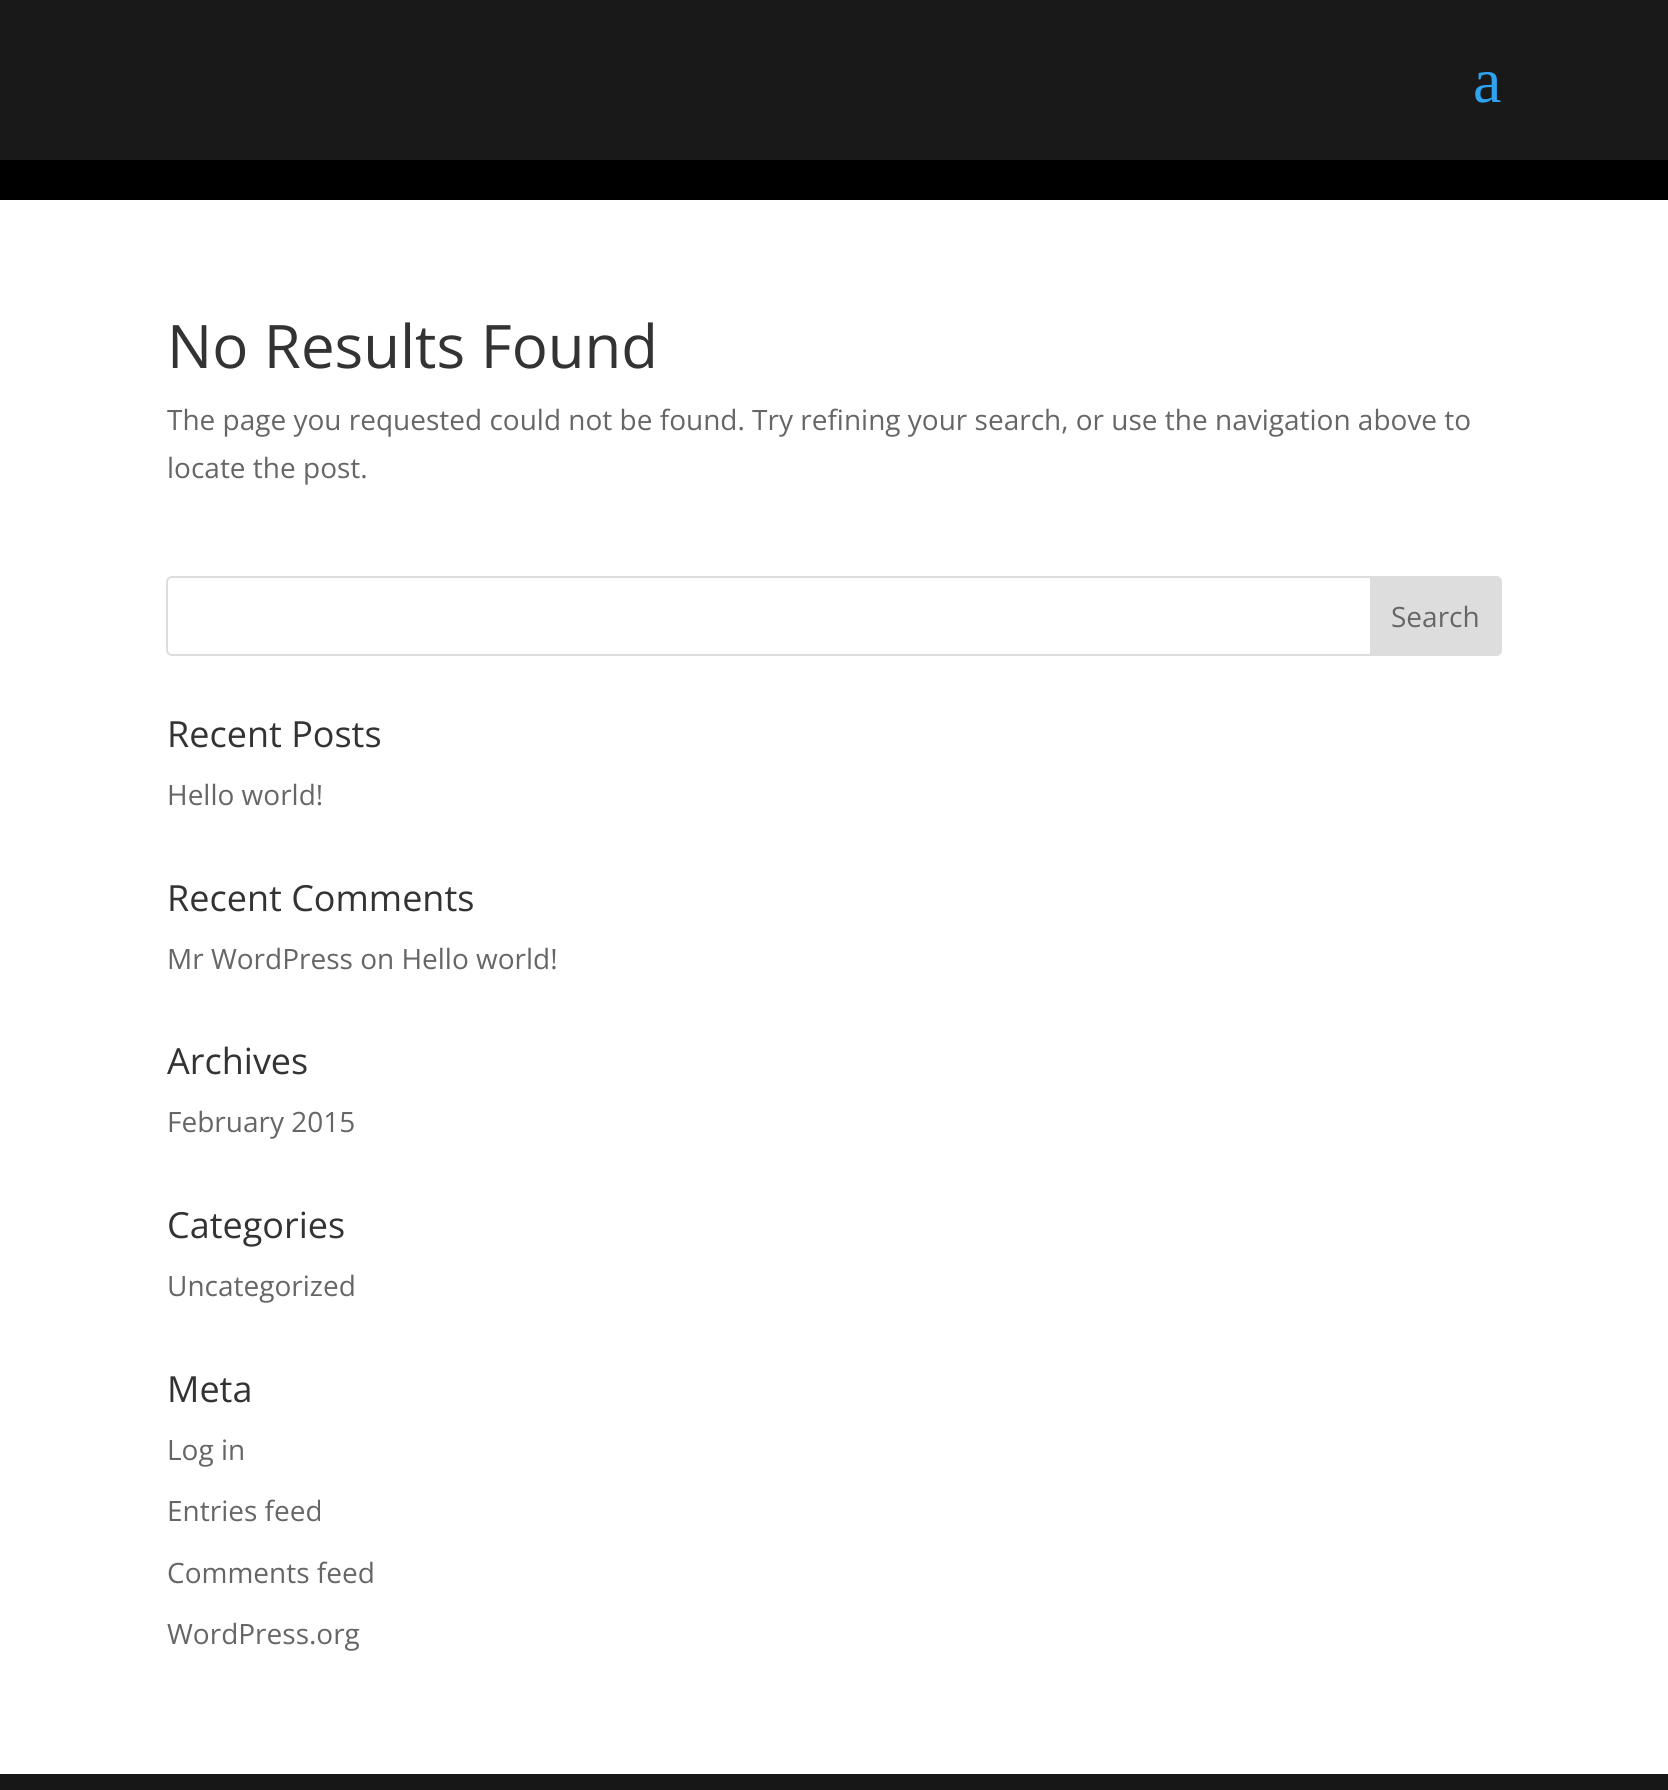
import math
import cairocffi as cairo

surface = cairo.ImageSurface(cairo.FORMAT_RGB24, 1668, 1790)
cr = cairo.Context(surface)
options = cairo.FontOptions()
options.set_hint_metrics(cairo.HINT_METRICS_OFF)
options.set_hint_style(cairo.HINT_STYLE_NONE)
cr.set_font_options(options)
cr.set_miter_limit(4)


def use_color(code):
    cr.set_source_rgb(*(v / 255 for v in bytes.fromhex(code[-6:])))


def round_rect(x, y, w, h, r):
    cr.new_sub_path()
    for i, (u, v) in enumerate([(x + w - r, y + h - r), (x + r, y + h - r), (x + r, y + r), (x + w - r, y + r)]):
        cr.arc(u, v, r, i * math.pi / 2, (i + 1) * math.pi / 2)
    cr.close_path()


use_color("#000000")
cr.paint()
use_color("#191919")
cr.rectangle(0, 0, 1668, 160)
cr.fill()
cr.select_font_face("Liberation Serif")
cr.set_font_size(64)
use_color("#2ea3f2")
cr.move_to(1473, 102)
cr.show_text("a")
use_color("#ffffff")
cr.rectangle(0, 200, 1668, 1574)
cr.fill()
cr.select_font_face("Open Sans")
cr.set_font_size(60)
use_color("#333333")
cr.move_to(167, 368)
cr.show_text("No Results Found")
cr.set_font_size(28)
use_color("#666666")
cr.move_to(167, 430)
cr.show_text("The page you requested could not be found. Try refining your search, or use the navigation above to")
cr.move_to(167, 478)
cr.show_text("locate the post.")
round_rect(167, 577, 1334, 78, 5)
use_color("#dddddd")
cr.stroke()
cr.new_path()
cr.move_to(1371, 577)
cr.line_to(1496, 577)
cr.curve_to(1499, 577, 1501, 579, 1501, 582)
cr.line_to(1501, 650)
cr.curve_to(1501, 653, 1499, 655, 1496, 655)
cr.line_to(1371, 655)
cr.close_path()
cr.fill_preserve()
cr.stroke()
use_color("#666666")
cr.move_to(1391, 627)
cr.show_text("Search")
cr.set_font_size(36)
use_color("#333333")
cr.move_to(167, 747)
cr.show_text("Recent Posts")
cr.set_font_size(28)
use_color("#666666")
cr.move_to(167, 805)
cr.show_text("Hello world!")
cr.set_font_size(36)
use_color("#333333")
cr.move_to(167, 911)
cr.show_text("Recent Comments")
cr.set_font_size(28)
use_color("#666666")
cr.move_to(167, 969)
cr.show_text("Mr WordPress on Hello world!")
cr.set_font_size(36)
use_color("#333333")
cr.move_to(167, 1074)
cr.show_text("Archives")
cr.set_font_size(28)
use_color("#666666")
cr.move_to(167, 1132)
cr.show_text("February 2015")
cr.set_font_size(36)
use_color("#333333")
cr.move_to(167, 1238)
cr.show_text("Categories")
cr.set_font_size(28)
use_color("#666666")
cr.move_to(167, 1296)
cr.show_text("Uncategorized")
cr.set_font_size(36)
use_color("#333333")
cr.move_to(167, 1402)
cr.show_text("Meta")
cr.set_font_size(28)
use_color("#666666")
cr.move_to(167, 1460)
cr.show_text("Log in")
cr.move_to(167, 1521)
cr.show_text("Entries feed")
cr.move_to(167, 1583)
cr.show_text("Comments feed")
cr.move_to(167, 1644)
cr.show_text("WordPress.org")
use_color("#171717")
cr.rectangle(0, 1774, 1668, 16)
cr.fill()
surface.write_to_png("result.png")
